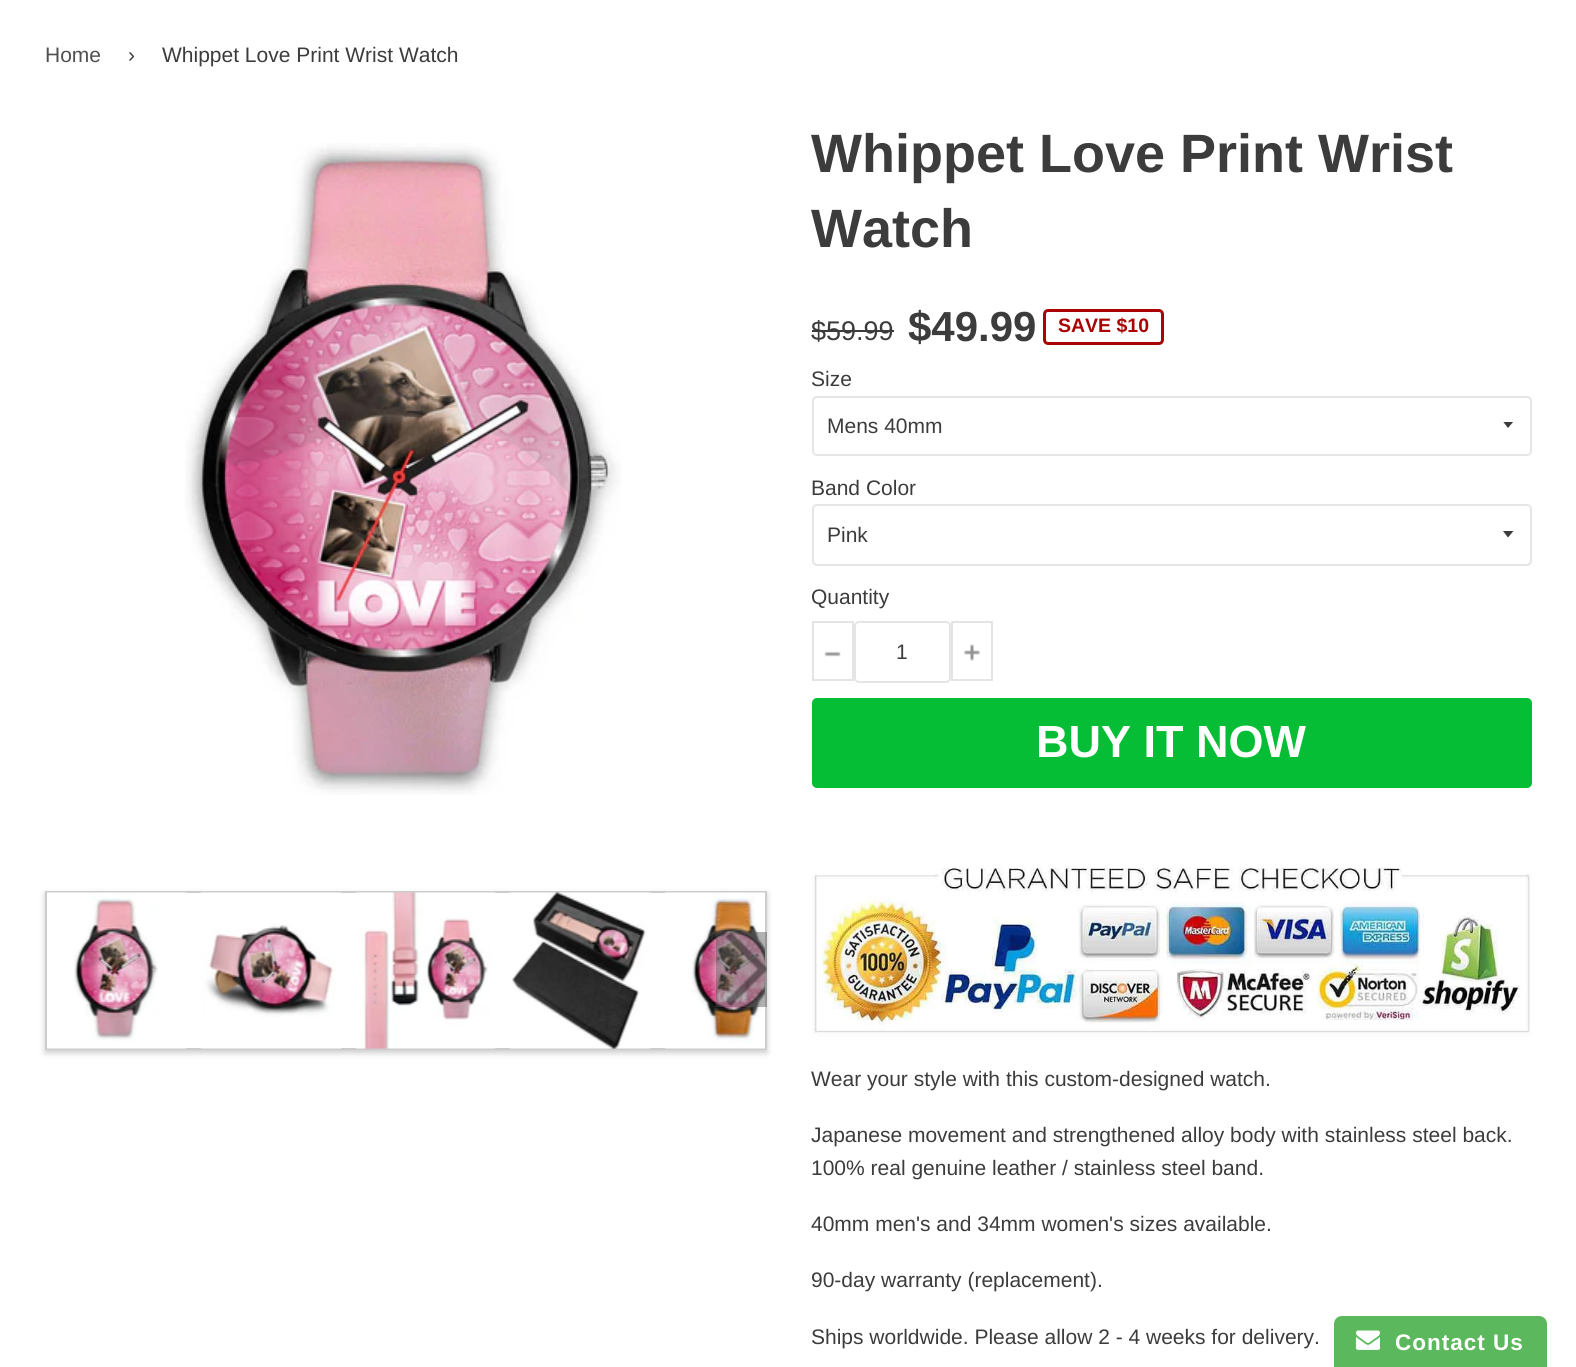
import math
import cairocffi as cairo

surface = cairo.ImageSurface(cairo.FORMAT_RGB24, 1576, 1367)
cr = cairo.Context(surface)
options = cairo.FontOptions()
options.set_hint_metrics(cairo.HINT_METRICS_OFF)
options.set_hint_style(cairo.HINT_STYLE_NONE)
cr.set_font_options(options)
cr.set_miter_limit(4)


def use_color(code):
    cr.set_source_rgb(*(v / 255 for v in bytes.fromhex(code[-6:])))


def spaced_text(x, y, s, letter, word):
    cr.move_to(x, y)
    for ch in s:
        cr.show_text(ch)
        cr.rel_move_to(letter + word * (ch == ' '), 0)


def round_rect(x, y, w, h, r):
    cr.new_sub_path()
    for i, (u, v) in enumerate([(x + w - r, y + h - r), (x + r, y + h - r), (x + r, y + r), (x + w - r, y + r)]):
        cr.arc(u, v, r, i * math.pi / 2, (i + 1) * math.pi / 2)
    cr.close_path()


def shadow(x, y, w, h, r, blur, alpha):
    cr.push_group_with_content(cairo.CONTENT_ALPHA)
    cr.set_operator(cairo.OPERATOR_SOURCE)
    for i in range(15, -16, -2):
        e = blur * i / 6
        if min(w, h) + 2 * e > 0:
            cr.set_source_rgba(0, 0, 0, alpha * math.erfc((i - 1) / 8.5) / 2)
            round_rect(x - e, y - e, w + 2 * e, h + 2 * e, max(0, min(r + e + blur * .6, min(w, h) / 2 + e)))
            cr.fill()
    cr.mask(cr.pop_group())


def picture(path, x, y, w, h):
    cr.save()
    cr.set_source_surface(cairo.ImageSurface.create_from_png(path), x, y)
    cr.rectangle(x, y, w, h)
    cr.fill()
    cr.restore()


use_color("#ffffff")
cr.paint()
cr.select_font_face("Liberation Sans")
cr.set_font_size(21)
use_color("#514f4f")
cr.move_to(45, 62)
cr.show_text("Home")
use_color("#3c3c3c")
cr.move_to(128, 62)
cr.show_text("›")
cr.move_to(162, 62)
cr.show_text("Whippet Love Print Wrist Watch")
picture("img1.png", 185, 143, 436, 652)
cr.save()
cr.set_fill_rule(cairo.FILL_RULE_EVEN_ODD)
cr.new_path()
cr.move_to(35, 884)
cr.line_to(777, 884)
cr.line_to(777, 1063)
cr.line_to(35, 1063)
cr.close_path()
cr.move_to(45, 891)
cr.line_to(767, 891)
cr.line_to(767, 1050)
cr.line_to(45, 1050)
cr.close_path()
cr.clip()
use_color("#cccccc")
shadow(45, 894, 722, 159, 0, 3, 1)
cr.restore()
cr.rectangle(46, 892, 720, 157)
use_color("#cccccc")
cr.stroke()
picture("img2.png", 47, 892, 140, 157)
picture("img3.png", 200, 892, 141, 157)
picture("img4.png", 356, 892, 140, 157)
picture("img5.png", 509, 892, 141, 157)
picture("img6.png", 665, 892, 100, 157)
cr.set_source_rgba(0.31, 0.31, 0.31, 0.43)
cr.rectangle(716, 932, 51, 75)
cr.fill()
picture("img7.png", 725, 931, 42, 76)
cr.select_font_face("Liberation Sans", cairo.FONT_SLANT_NORMAL, cairo.FONT_WEIGHT_BOLD)
cr.set_font_size(54)
use_color("#3c3c3c")
cr.move_to(811, 172)
cr.show_text("Whippet Love Print Wrist")
cr.move_to(811, 247)
cr.show_text("Watch")
cr.select_font_face("Liberation Sans")
cr.set_font_size(27)
cr.move_to(811, 340)
cr.show_text("$59.99")
cr.rectangle(812, 330, 82, 2)
cr.fill()
cr.select_font_face("Liberation Sans", cairo.FONT_SLANT_NORMAL, cairo.FONT_WEIGHT_BOLD)
cr.set_font_size(42)
cr.move_to(908, 341)
cr.show_text("$49.99")
round_rect(1044.5, 310.5, 118, 33, 3.5)
use_color("#aa0303")
cr.set_line_width(3)
cr.stroke()
cr.set_font_size(19.5)
cr.move_to(1058, 332)
cr.show_text("SAVE $10")
cr.select_font_face("Liberation Sans")
cr.set_font_size(21)
use_color("#3c3c3c")
cr.move_to(811, 386)
cr.show_text("Size")
cr.save()
cr.rectangle(1503, 422, 12, 7)
cr.clip()
cr.new_path()
cr.move_to(1503, 421.5)
cr.line_to(1508, 428)
cr.line_to(1513.5, 421.5)
cr.close_path()
cr.fill()
cr.restore()
round_rect(813, 397, 718, 58, 4)
use_color("#e5e5e5")
cr.set_line_width(2)
cr.stroke()
use_color("#3c3c3c")
cr.move_to(827, 433)
cr.show_text("Mens 40mm")
cr.move_to(811, 495)
cr.show_text("Band Color")
cr.new_path()
cr.move_to(1503, 531)
cr.line_to(1508, 537.5)
cr.line_to(1513.5, 531)
cr.close_path()
cr.fill()
round_rect(813, 505, 718, 60, 4)
use_color("#e5e5e5")
cr.stroke()
use_color("#3c3c3c")
cr.move_to(827, 542)
cr.show_text("Pink")
cr.move_to(811, 604)
cr.show_text("Quantity")
cr.rectangle(813, 622, 40, 58)
use_color("#e4e4e4")
cr.stroke()
picture("img8.png", 824, 651, 17, 6)
round_rect(855, 622, 95, 60, 4)
use_color("#e5e5e5")
cr.stroke()
use_color("#3c3c3c")
cr.move_to(896, 659)
cr.show_text("1")
cr.rectangle(952, 622, 40, 58)
use_color("#e4e4e4")
cr.stroke()
picture("img9.png", 964, 644, 16, 17)
use_color("#06be35")
round_rect(812, 698, 720, 90, 5)
cr.fill()
cr.select_font_face("Liberation Sans", cairo.FONT_SLANT_NORMAL, cairo.FONT_WEIGHT_BOLD)
cr.set_font_size(45)
use_color("#ffffff")
cr.move_to(1036, 757)
cr.show_text("BUY IT NOW")
picture("img10.png", 812, 867, 720, 170)
cr.select_font_face("Liberation Sans")
cr.set_font_size(21)
use_color("#3c3c3c")
cr.move_to(811, 1086)
cr.show_text("Wear your style with this custom-designed watch.")
cr.move_to(811, 1142)
cr.show_text("Japanese movement and strengthened alloy body with stainless steel back.")
cr.move_to(811, 1175)
cr.show_text("100% real genuine leather / stainless steel band.")
cr.move_to(811, 1231)
cr.show_text("40mm men's and 34mm women's sizes available.")
cr.move_to(811, 1287)
cr.show_text("90-day warranty (replacement).")
cr.move_to(811, 1344)
cr.show_text("Ships worldwide. Please allow 2 - 4 weeks for delivery.")
use_color("#5cb85c")
cr.new_path()
cr.move_to(1342, 1316)
cr.line_to(1539, 1316)
cr.curve_to(1543.5, 1316, 1547, 1319.5, 1547, 1324)
cr.line_to(1547, 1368)
cr.line_to(1334, 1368)
cr.line_to(1334, 1324)
cr.curve_to(1334, 1319.5, 1337.5, 1316, 1342, 1316)
cr.close_path()
cr.fill()
picture("img11.png", 1355, 1330, 25, 20)
cr.select_font_face("Liberation Sans", cairo.FONT_SLANT_NORMAL, cairo.FONT_WEIGHT_BOLD)
cr.set_font_size(22.5)
use_color("#ffffff")
spaced_text(1395, 1350, "Contact Us", 1, 0)
surface.write_to_png("result.png")
